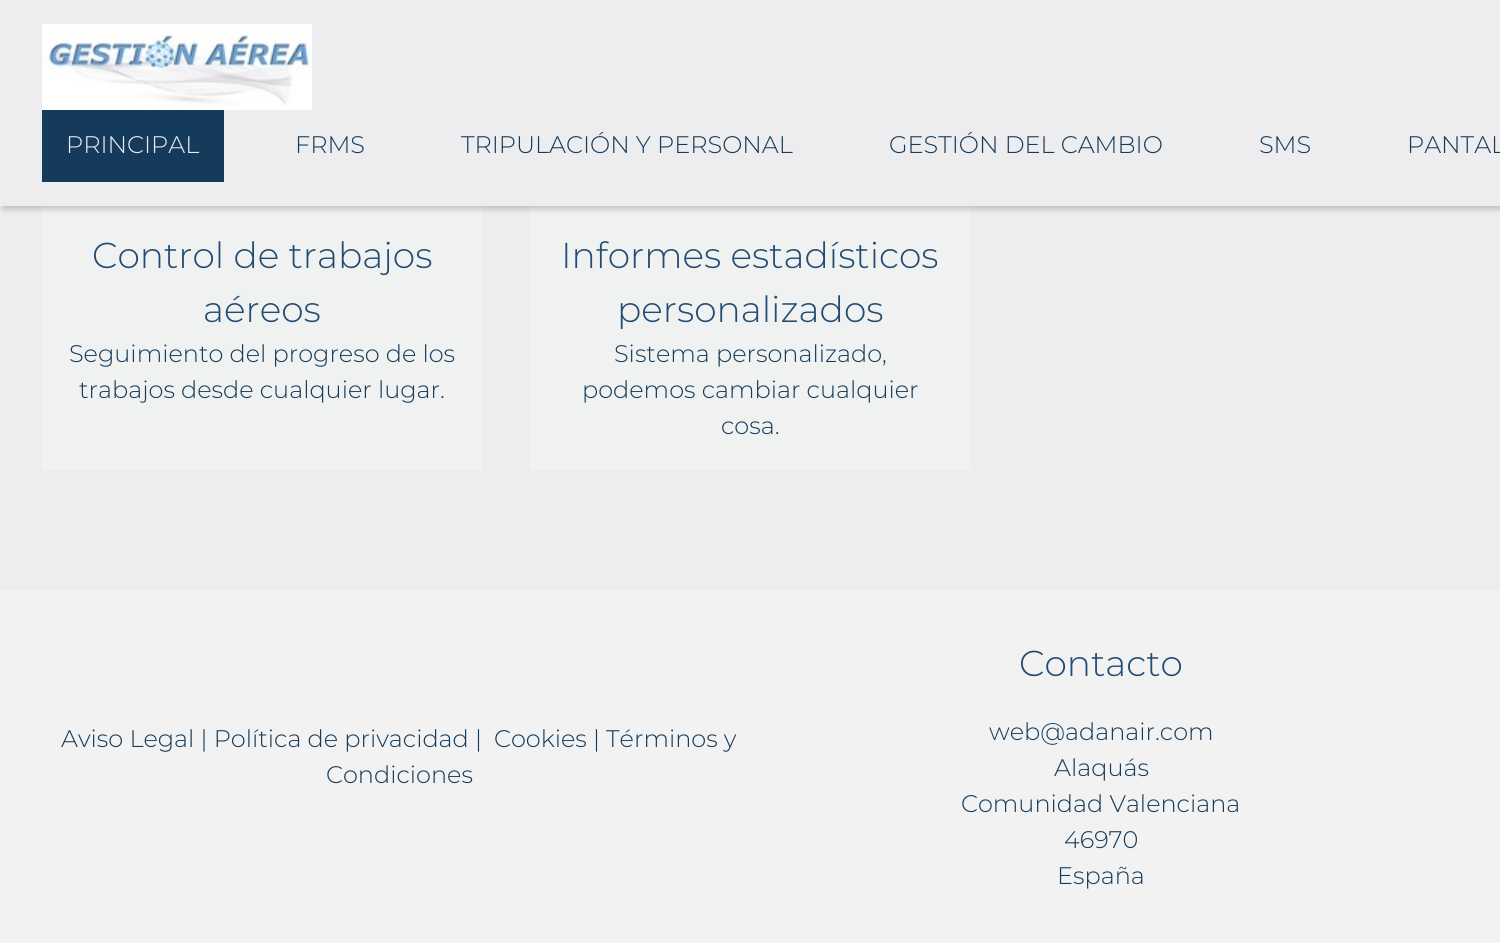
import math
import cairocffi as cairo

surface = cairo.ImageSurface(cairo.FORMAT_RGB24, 1500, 943)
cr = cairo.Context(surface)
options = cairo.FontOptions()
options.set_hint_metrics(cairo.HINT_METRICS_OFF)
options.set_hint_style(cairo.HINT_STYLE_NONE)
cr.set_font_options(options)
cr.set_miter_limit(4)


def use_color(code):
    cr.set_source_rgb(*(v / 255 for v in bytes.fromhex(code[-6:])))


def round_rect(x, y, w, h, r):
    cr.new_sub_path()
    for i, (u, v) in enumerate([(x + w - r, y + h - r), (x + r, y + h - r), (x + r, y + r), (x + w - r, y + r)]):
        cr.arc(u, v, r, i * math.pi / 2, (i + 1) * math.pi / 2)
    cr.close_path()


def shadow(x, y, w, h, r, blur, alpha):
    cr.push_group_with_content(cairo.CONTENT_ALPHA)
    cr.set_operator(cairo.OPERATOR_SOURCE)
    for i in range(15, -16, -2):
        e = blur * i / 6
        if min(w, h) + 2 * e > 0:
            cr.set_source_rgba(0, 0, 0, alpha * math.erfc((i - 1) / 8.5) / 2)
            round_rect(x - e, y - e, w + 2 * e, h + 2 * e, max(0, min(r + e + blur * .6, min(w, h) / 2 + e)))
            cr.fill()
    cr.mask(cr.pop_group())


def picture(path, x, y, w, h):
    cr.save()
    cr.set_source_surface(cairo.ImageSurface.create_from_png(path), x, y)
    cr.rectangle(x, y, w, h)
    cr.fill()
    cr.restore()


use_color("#ededef")
cr.paint()
use_color("#f0f2f1")
cr.rectangle(42, 206, 440, 264)
cr.fill()
cr.rectangle(530, 206, 441, 264)
cr.fill()
use_color("#000000")
shadow(3, 3, 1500, 206, 0, 3, 0.2)
use_color("#ededef")
cr.rectangle(0, 0, 1500, 206)
cr.fill()
picture("img1.png", 42, 24, 270, 86)
use_color("#143b5b")
cr.rectangle(42, 110, 182, 72)
cr.fill()
cr.select_font_face("Montserrat Light")
cr.set_font_size(24)
use_color("#ededef")
cr.move_to(66, 153)
cr.show_text("PRINCIPAL")
use_color("#143b5b")
cr.move_to(295, 153)
cr.show_text("FRMS")
cr.move_to(461, 153)
cr.show_text("TRIPULACIÓN Y PERSONAL")
cr.move_to(889, 153)
cr.show_text("GESTIÓN DEL CAMBIO")
cr.move_to(1259, 153)
cr.show_text("SMS")
cr.move_to(1407, 153)
cr.show_text("PANTAL")
cr.set_font_size(36)
use_color("#224b74")
cr.move_to(92, 268)
cr.show_text("Control de trabajos")
cr.move_to(203, 322)
cr.show_text("aéreos")
cr.set_font_size(24)
use_color("#143b5b")
cr.move_to(69, 362)
cr.show_text("Seguimiento del progreso de los")
cr.move_to(79, 398)
cr.show_text("trabajos desde cualquier lugar.")
cr.set_font_size(36)
use_color("#224b74")
cr.move_to(561, 268)
cr.show_text("Informes estadísticos")
cr.move_to(617, 322)
cr.show_text("personalizados")
cr.set_font_size(24)
use_color("#143b5b")
cr.move_to(614, 362)
cr.show_text("Sistema personalizado,")
cr.move_to(582, 398)
cr.show_text("podemos cambiar cualquier")
cr.move_to(721, 434)
cr.show_text("cosa.")
use_color("#f2f2f2")
cr.rectangle(0, 590, 1500, 353)
cr.fill()
use_color("#143b5b")
cr.move_to(61, 747)
cr.show_text("Aviso Legal | Política de privacidad |")
cr.move_to(494, 747)
cr.show_text("Cookies | Términos y")
cr.move_to(326, 783)
cr.show_text("Condiciones")
cr.set_font_size(36)
use_color("#224b74")
cr.move_to(1019, 676)
cr.show_text("Contacto")
cr.set_font_size(24)
use_color("#143b5b")
cr.move_to(989, 740)
cr.show_text("web@adanair.com")
cr.move_to(1054, 776)
cr.show_text("Alaquás")
cr.move_to(961, 812)
cr.show_text("Comunidad Valenciana")
cr.move_to(1064, 848)
cr.show_text("46970")
cr.move_to(1057, 884)
cr.show_text("España")
surface.write_to_png("result.png")
